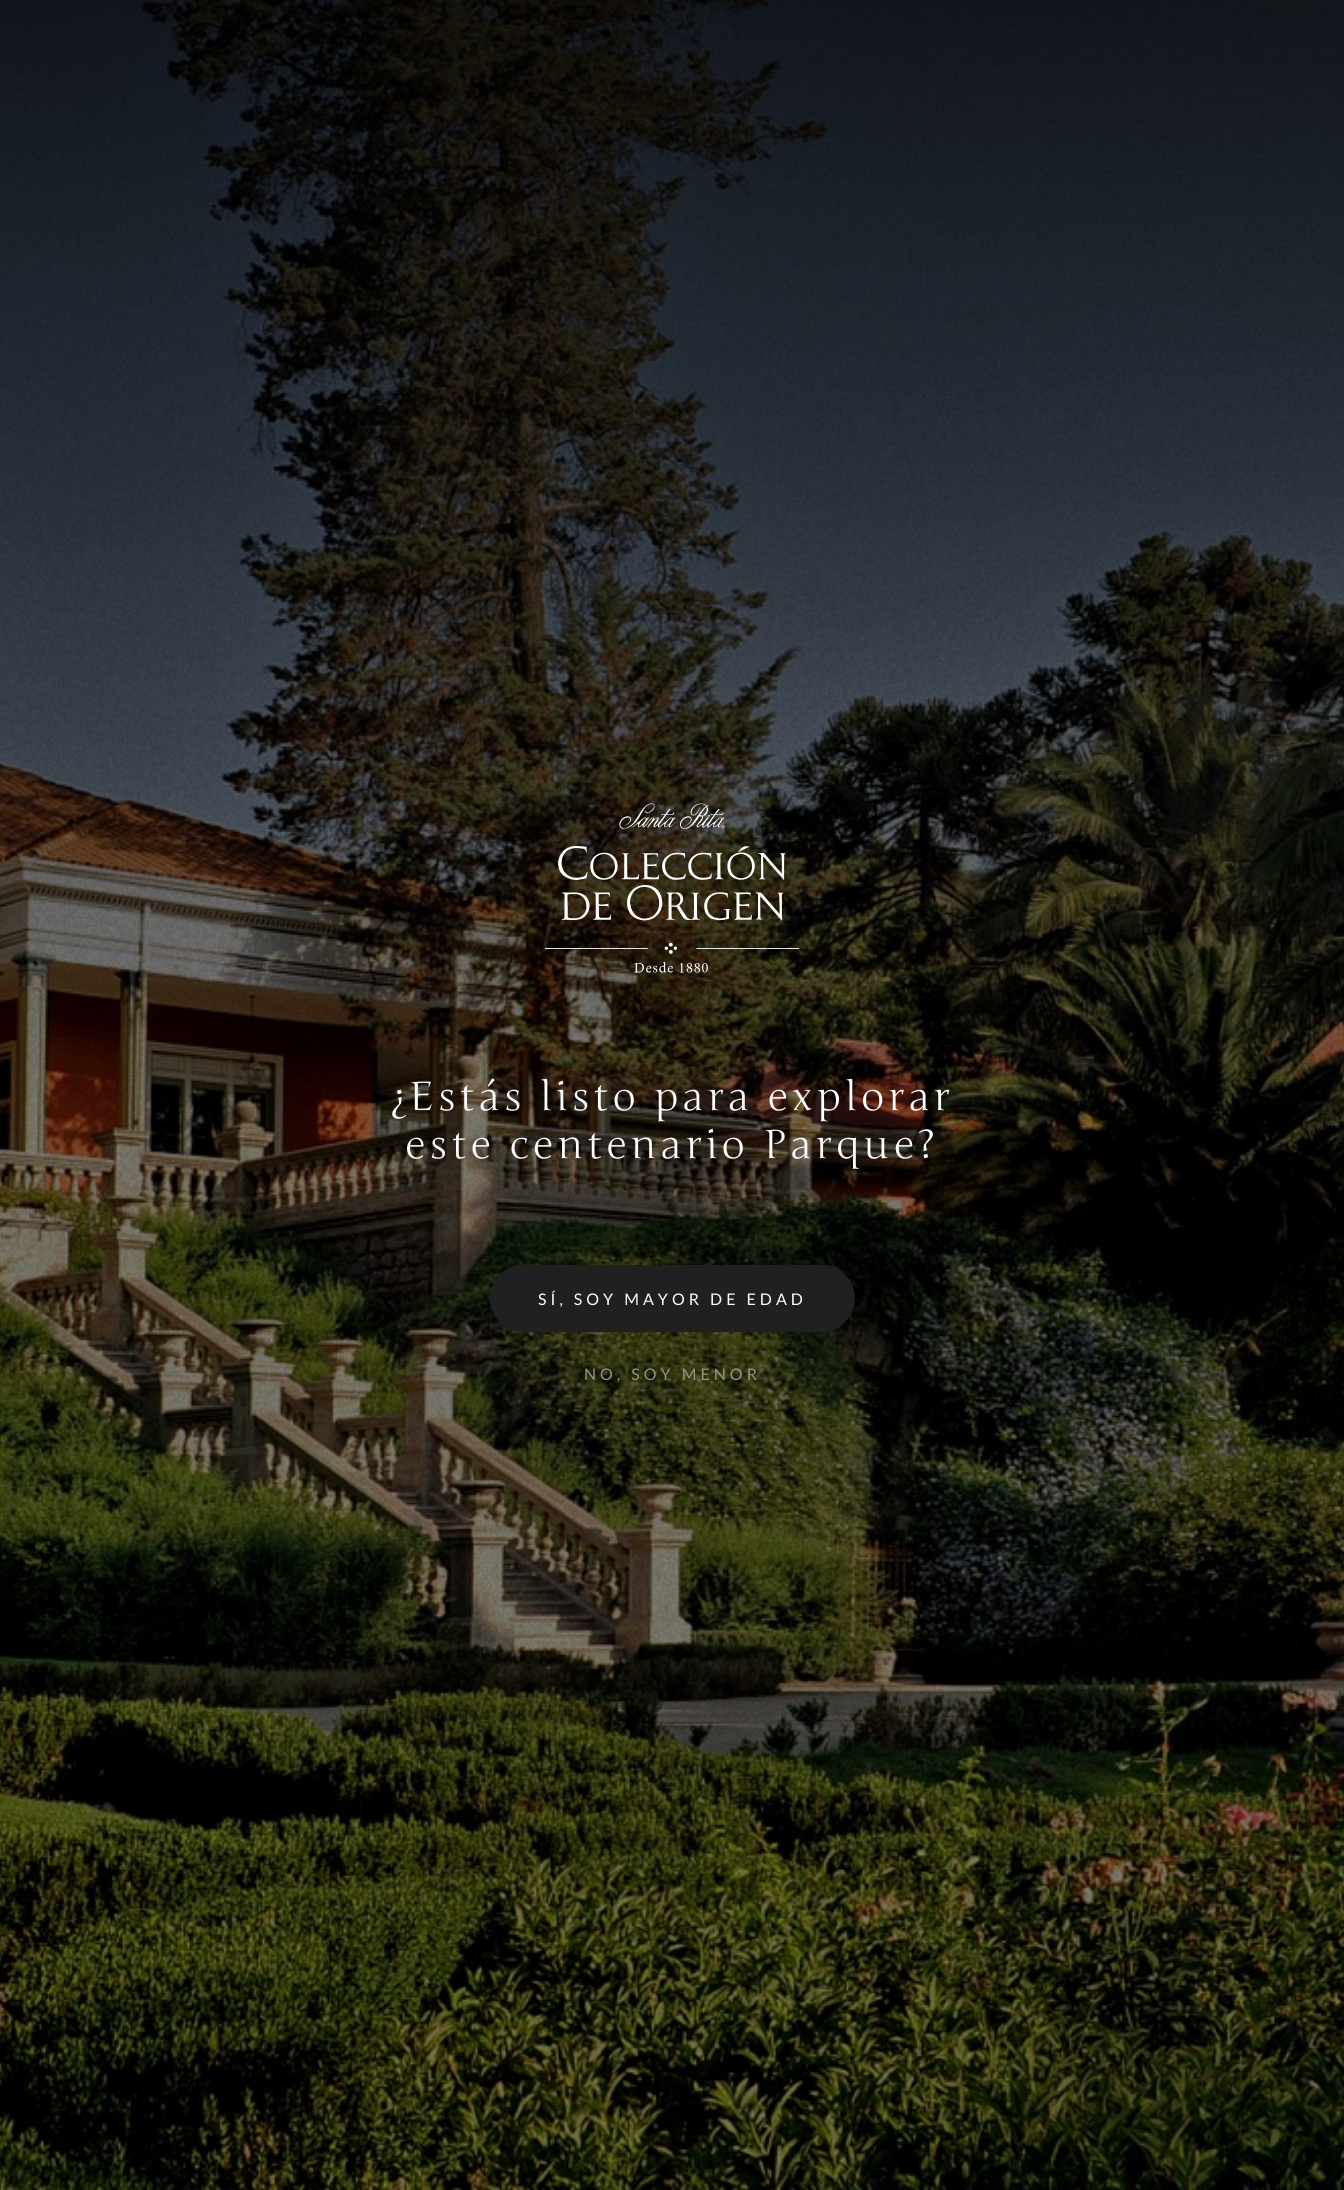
import math
import cairocffi as cairo

surface = cairo.ImageSurface(cairo.FORMAT_RGB24, 1344, 2190)
cr = cairo.Context(surface)
options = cairo.FontOptions()
options.set_hint_metrics(cairo.HINT_METRICS_OFF)
options.set_hint_style(cairo.HINT_STYLE_NONE)
cr.set_font_options(options)
cr.set_miter_limit(4)


def use_color(code):
    cr.set_source_rgb(*(v / 255 for v in bytes.fromhex(code[-6:])))


def spaced_text(x, y, s, letter, word):
    cr.move_to(x, y)
    for ch in s:
        cr.show_text(ch)
        cr.rel_move_to(letter + word * (ch == ' '), 0)


def round_rect(x, y, w, h, r):
    cr.new_sub_path()
    for i, (u, v) in enumerate([(x + w - r, y + h - r), (x + r, y + h - r), (x + r, y + r), (x + w - r, y + r)]):
        cr.arc(u, v, r, i * math.pi / 2, (i + 1) * math.pi / 2)
    cr.close_path()


def picture(path, x, y, w, h):
    cr.save()
    cr.set_source_surface(cairo.ImageSurface.create_from_png(path), x, y)
    cr.rectangle(x, y, w, h)
    cr.fill()
    cr.restore()


use_color("#ffffff")
cr.paint()
picture("img1.png", 0, 0, 1344, 2190)
picture("img2.png", 544, 803, 256, 170)
cr.select_font_face("Junge")
cr.set_font_size(40)
use_color("#ffffff")
spaced_text(390, 1110, "¿Estás listo para explorar", 4, 0)
spaced_text(405, 1158, "este centenario Parque?", 4, 0)
use_color("#202020")
round_rect(490, 1265, 365, 67, 33.5)
cr.fill()
cr.select_font_face("Lato")
cr.set_font_size(16)
use_color("#ffffff")
spaced_text(538, 1305, "SÍ, SOY MAYOR DE EDAD", 4, 0)
use_color("#959687")
spaced_text(584, 1380, "NO, SOY MENOR", 4, 0)
surface.write_to_png("result.png")
